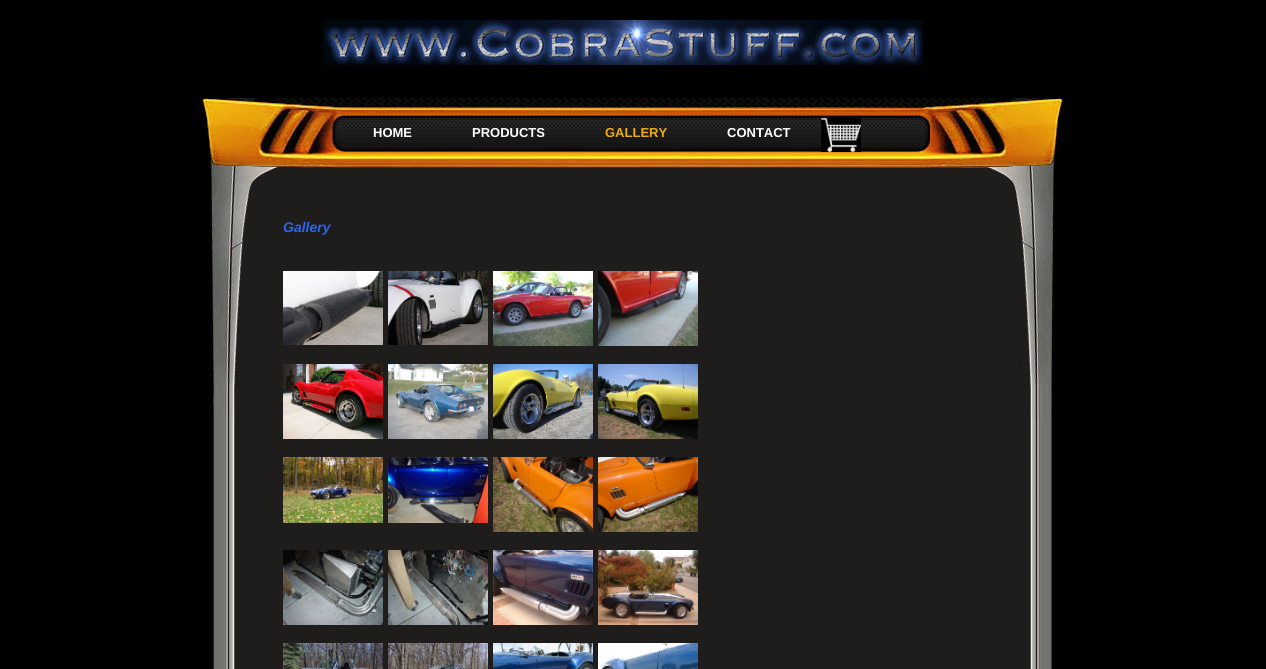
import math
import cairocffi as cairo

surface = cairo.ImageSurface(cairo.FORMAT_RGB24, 1266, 669)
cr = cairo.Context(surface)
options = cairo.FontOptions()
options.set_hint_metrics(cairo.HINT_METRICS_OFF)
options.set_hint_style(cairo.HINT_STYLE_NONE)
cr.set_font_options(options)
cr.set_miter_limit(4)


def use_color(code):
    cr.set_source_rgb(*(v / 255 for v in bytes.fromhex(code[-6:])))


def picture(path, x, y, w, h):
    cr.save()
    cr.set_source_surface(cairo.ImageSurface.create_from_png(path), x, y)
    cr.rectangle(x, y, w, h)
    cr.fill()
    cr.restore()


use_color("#000000")
cr.paint()
picture("img1.png", 323, 20, 600, 45)
picture("img2.png", 199, 98, 864, 70)
cr.select_font_face("Liberation Sans", cairo.FONT_SLANT_NORMAL, cairo.FONT_WEIGHT_BOLD)
cr.set_font_size(13)
use_color("#ffffff")
cr.move_to(373, 137)
cr.show_text("HOME")
cr.move_to(472, 137)
cr.show_text("PRODUCTS")
use_color("#edad0f")
cr.move_to(605, 137)
cr.show_text("GALLERY")
use_color("#ffffff")
cr.move_to(727, 137)
cr.show_text("CONTACT")
picture("img3.png", 821, 118, 40, 34)
picture("img4.png", 213, 418, 839, 251)
picture("img5.png", 208, 168, 846, 250)
cr.select_font_face("Liberation Sans", cairo.FONT_SLANT_ITALIC, cairo.FONT_WEIGHT_BOLD)
cr.set_font_size(14)
use_color("#2b65ec")
cr.move_to(283, 232)
cr.show_text("Gallery")
picture("img6.png", 283, 271, 100, 74)
picture("img7.png", 388, 271, 100, 74)
picture("img8.png", 493, 271, 100, 75)
picture("img9.png", 598, 271, 100, 75)
picture("img10.png", 283, 364, 100, 75)
picture("img11.png", 388, 364, 100, 75)
picture("img12.png", 493, 364, 100, 75)
picture("img13.png", 598, 364, 100, 75)
picture("img14.png", 283, 457, 100, 66)
picture("img15.png", 388, 457, 100, 66)
picture("img16.png", 493, 457, 100, 75)
picture("img17.png", 598, 457, 100, 75)
picture("img18.png", 283, 550, 100, 75)
picture("img19.png", 388, 550, 100, 75)
picture("img20.png", 493, 550, 100, 75)
picture("img21.png", 598, 550, 100, 75)
picture("img22.png", 283, 643, 100, 26)
picture("img23.png", 388, 643, 100, 26)
picture("img24.png", 493, 643, 100, 26)
picture("img25.png", 598, 643, 100, 26)
surface.write_to_png("result.png")
